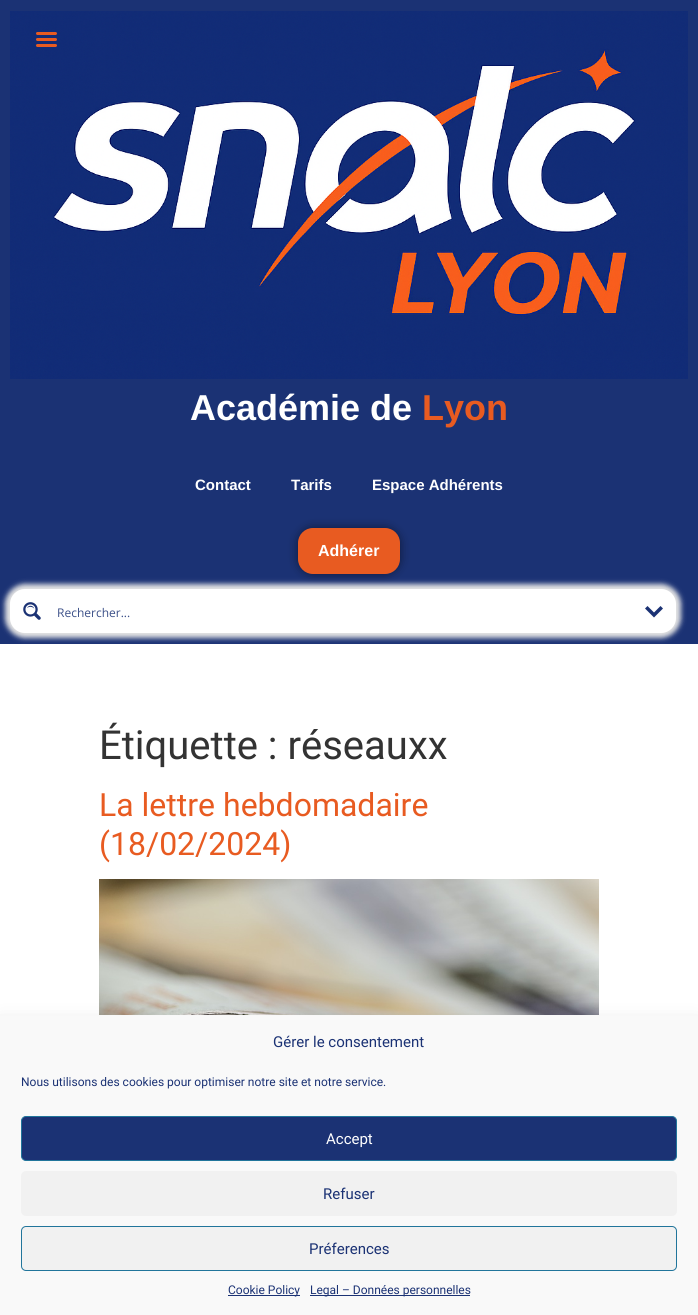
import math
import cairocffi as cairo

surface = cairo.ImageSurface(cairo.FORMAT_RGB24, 698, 1315)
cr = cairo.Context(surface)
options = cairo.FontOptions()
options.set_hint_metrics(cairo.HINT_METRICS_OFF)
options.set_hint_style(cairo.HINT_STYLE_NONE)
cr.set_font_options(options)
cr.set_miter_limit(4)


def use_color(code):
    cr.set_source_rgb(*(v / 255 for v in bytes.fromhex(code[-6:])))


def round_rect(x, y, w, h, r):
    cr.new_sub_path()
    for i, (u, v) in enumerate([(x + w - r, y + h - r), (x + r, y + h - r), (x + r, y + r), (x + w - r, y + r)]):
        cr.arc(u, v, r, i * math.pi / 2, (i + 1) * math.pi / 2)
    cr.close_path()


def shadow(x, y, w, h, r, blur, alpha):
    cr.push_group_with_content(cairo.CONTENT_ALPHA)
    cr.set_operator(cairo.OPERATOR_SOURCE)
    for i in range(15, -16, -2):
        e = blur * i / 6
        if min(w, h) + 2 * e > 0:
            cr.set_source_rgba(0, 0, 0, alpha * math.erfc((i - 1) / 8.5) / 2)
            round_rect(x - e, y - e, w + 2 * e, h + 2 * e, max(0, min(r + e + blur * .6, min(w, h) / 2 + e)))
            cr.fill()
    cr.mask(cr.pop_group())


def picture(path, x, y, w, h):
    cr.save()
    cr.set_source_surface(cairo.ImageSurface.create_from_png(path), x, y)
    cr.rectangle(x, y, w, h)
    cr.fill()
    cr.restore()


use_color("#ffffff")
cr.paint()
use_color("#1b3274")
cr.rectangle(0, 0, 698, 644)
cr.fill()
picture("img2.png", 10, 11, 678, 368)
picture("img1.png", 36, 32, 21, 15)
cr.select_font_face("Liberation Sans", cairo.FONT_SLANT_NORMAL, cairo.FONT_WEIGHT_BOLD)
cr.set_font_size(36)
use_color("#ffffff")
cr.move_to(190, 420)
cr.show_text("Académie de")
use_color("#e85b21")
cr.move_to(422, 420)
cr.show_text("Lyon")
cr.set_font_size(15)
use_color("#ffffff")
cr.move_to(195, 490)
cr.show_text("Contact")
cr.move_to(291, 490)
cr.show_text("Tarifs")
cr.move_to(372, 490)
cr.show_text("Espace Adhérents")
use_color("#000000")
shadow(298, 528, 102, 46, 15, 5, 0.5)
use_color("#e85b21")
round_rect(298, 528, 102, 46, 15)
cr.fill()
cr.set_font_size(16)
use_color("#ffffff")
cr.move_to(318, 556)
cr.show_text("Adhérer")
use_color("#e4e4e4")
shadow(5, 584, 676, 54, 20, 2.5, 1)
use_color("#ffffff")
round_rect(10, 589, 666, 44, 15)
cr.fill()
picture("img3.png", 23, 602, 18, 18)
cr.select_font_face("Open Sans")
cr.set_font_size(12)
use_color("#3d5189")
cr.move_to(57, 617)
cr.show_text("Rechercher...")
use_color("#1b3274")
cr.new_path()
cr.move_to(660.5, 606)
cr.line_to(663, 608.5)
cr.line_to(654, 617.5)
cr.line_to(645, 608.5)
cr.line_to(647.5, 606)
cr.line_to(654, 612.5)
cr.close_path()
cr.fill()
cr.select_font_face("Roboto")
cr.set_font_size(40)
use_color("#333333")
cr.move_to(99, 759)
cr.show_text("Étiquette : réseauxx")
cr.set_font_size(32)
use_color("#e85b21")
cr.move_to(99, 816)
cr.show_text("La lettre hebdomadaire")
cr.move_to(99, 855)
cr.show_text("(18/02/2024)")
picture("img4.png", 99, 879, 500, 136)
use_color("#000000")
shadow(0, 1025, 698, 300, 0, 10, 0.19)
use_color("#f9f9f9")
cr.rectangle(0, 1016, 698, 299)
cr.fill()
cr.set_font_size(15)
use_color("#1b3274")
cr.move_to(273, 1047)
cr.show_text("Gérer le consentement")
cr.set_font_size(12)
cr.move_to(21, 1086)
cr.show_text("Nous utilisons des cookies pour optimiser notre site et notre service.")
round_rect(21.5, 1116.5, 655, 44, 4.5)
cr.fill_preserve()
use_color("#21759b")
cr.set_line_width(1)
cr.stroke()
cr.set_font_size(15)
use_color("#ffffff")
cr.move_to(326, 1144)
cr.show_text("Accept")
use_color("#f1f1f1")
round_rect(21, 1171, 656, 45, 5)
cr.fill()
use_color("#1b3274")
cr.move_to(323, 1199)
cr.show_text("Refuser")
use_color("#f1f1f1")
round_rect(21.5, 1226.5, 655, 44, 4.5)
cr.fill_preserve()
use_color("#21759b")
cr.stroke()
use_color("#1b3274")
cr.move_to(309, 1254)
cr.show_text("Préferences")
cr.rectangle(228, 1295, 72, 1)
cr.fill()
cr.set_font_size(12)
cr.move_to(228, 1294)
cr.show_text("Cookie Policy")
cr.rectangle(310, 1295, 160, 1)
cr.fill()
cr.move_to(310, 1294)
cr.show_text("Legal – Données personnelles")
surface.write_to_png("result.png")
